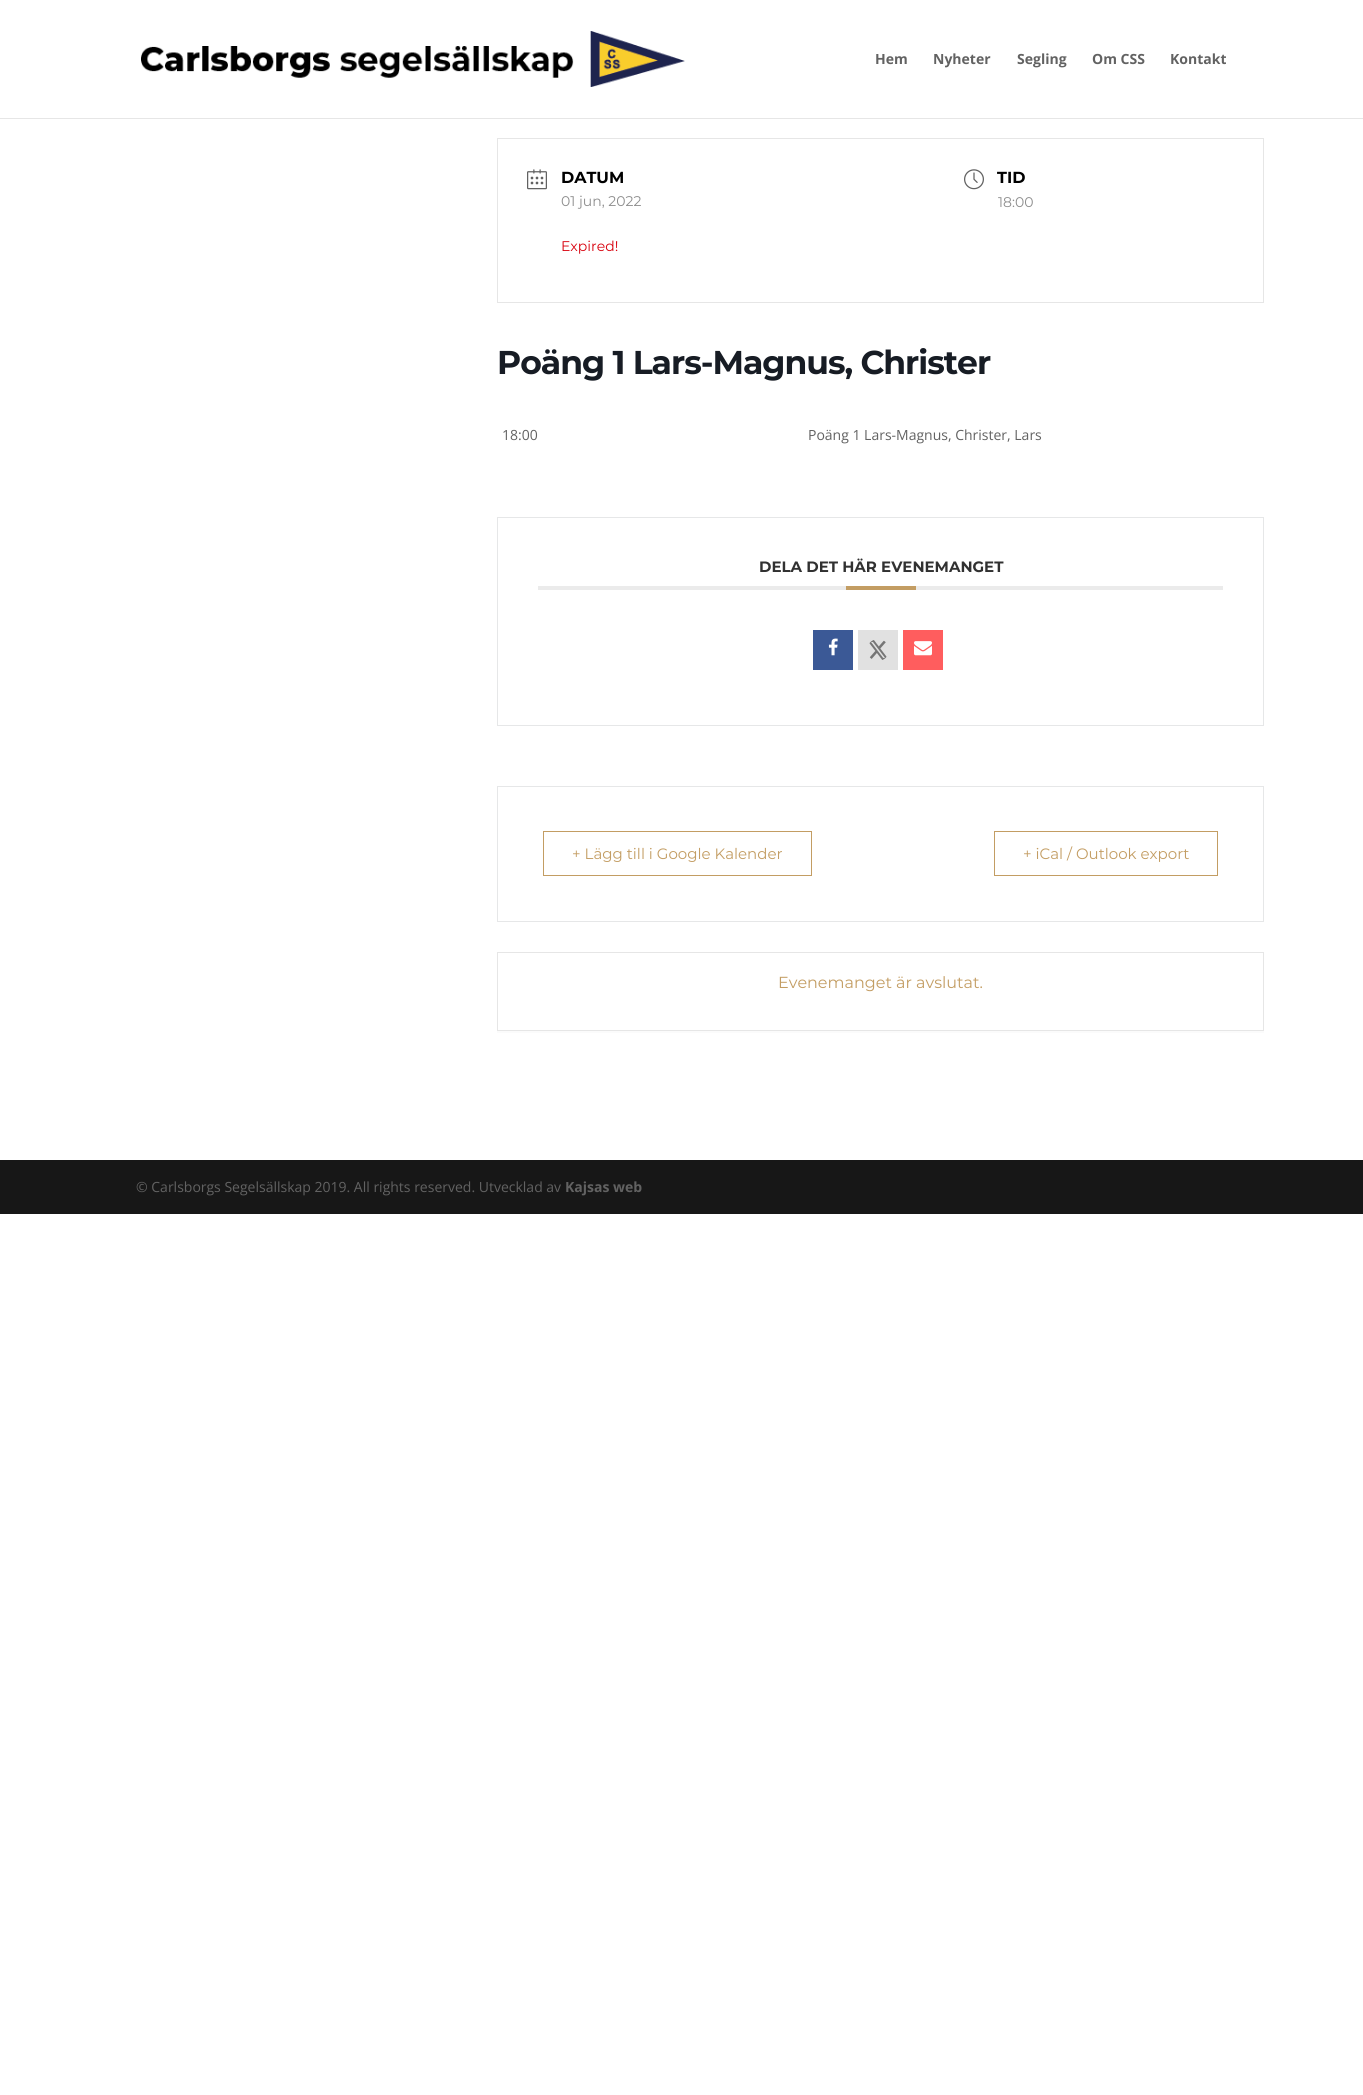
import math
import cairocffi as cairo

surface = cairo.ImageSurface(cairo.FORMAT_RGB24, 1363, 2095)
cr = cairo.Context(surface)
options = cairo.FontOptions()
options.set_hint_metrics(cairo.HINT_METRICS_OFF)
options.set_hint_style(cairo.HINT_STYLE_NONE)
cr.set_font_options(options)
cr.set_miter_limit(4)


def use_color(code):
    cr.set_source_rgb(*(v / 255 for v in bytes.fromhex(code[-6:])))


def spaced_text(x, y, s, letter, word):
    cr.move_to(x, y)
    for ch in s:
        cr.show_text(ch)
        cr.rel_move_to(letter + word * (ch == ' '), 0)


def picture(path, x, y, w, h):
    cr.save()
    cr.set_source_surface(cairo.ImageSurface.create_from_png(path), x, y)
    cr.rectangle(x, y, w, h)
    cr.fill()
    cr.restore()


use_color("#ffffff")
cr.paint()
use_color("#e6e6e6")
cr.rectangle(0, 118, 1363, 1)
cr.fill()
picture("img1.png", 141, 31, 544, 56)
cr.select_font_face("Open Sans", cairo.FONT_SLANT_NORMAL, cairo.FONT_WEIGHT_BOLD)
cr.set_font_size(14)
use_color("#626262")
cr.move_to(875, 64)
cr.show_text("Hem")
cr.move_to(933, 64)
cr.show_text("Nyheter")
cr.move_to(1017, 64)
cr.show_text("Segling")
cr.move_to(1092, 64)
cr.show_text("Om CSS")
cr.move_to(1170, 64)
cr.show_text("Kontakt")
cr.rectangle(497.5, 138.5, 766, 164)
use_color("#e6e6e6")
cr.set_line_width(1)
cr.stroke()
picture("img2.png", 527, 169, 20, 21)
cr.select_font_face("Montserrat", cairo.FONT_SLANT_NORMAL, cairo.FONT_WEIGHT_BOLD)
cr.set_font_size(16)
use_color("#000000")
cr.move_to(561, 183)
cr.show_text("DATUM")
cr.select_font_face("Montserrat")
cr.set_font_size(14)
use_color("#8d8d8d")
cr.move_to(561, 206)
cr.show_text("01 jun, 2022")
use_color("#d8000c")
cr.move_to(561, 251)
cr.show_text("Expired!")
picture("img3.png", 964, 169, 20, 21)
cr.select_font_face("Montserrat", cairo.FONT_SLANT_NORMAL, cairo.FONT_WEIGHT_BOLD)
cr.set_font_size(16)
use_color("#000000")
cr.move_to(997, 183)
cr.show_text("TID")
cr.select_font_face("Montserrat")
cr.set_font_size(14)
use_color("#8d8d8d")
cr.move_to(998, 207)
cr.show_text("18:00")
cr.select_font_face("Montserrat", cairo.FONT_SLANT_NORMAL, cairo.FONT_WEIGHT_BOLD)
cr.set_font_size(33)
use_color("#171c24")
spaced_text(497, 374, "Poäng 1 Lars-Magnus, Christer", -1, 0)
cr.select_font_face("Open Sans")
cr.set_font_size(14)
use_color("#626262")
cr.move_to(502, 440)
cr.show_text("18:00")
cr.move_to(808, 440)
cr.show_text("Poäng 1 Lars-Magnus, Christer, Lars")
cr.rectangle(497.5, 517.5, 766, 208)
use_color("#e6e7e8")
cr.stroke()
use_color("#ebebeb")
cr.rectangle(538, 586, 685, 4)
cr.fill()
cr.select_font_face("Montserrat", cairo.FONT_SLANT_NORMAL, cairo.FONT_WEIGHT_BOLD)
cr.set_font_size(15)
use_color("#313131")
cr.move_to(759, 572)
cr.show_text("DELA DET HÄR EVENEMANGET")
use_color("#c39d63")
cr.rectangle(846, 586, 70, 4)
cr.fill()
use_color("#3b5996")
cr.rectangle(813, 630, 40, 40)
cr.fill()
picture("img4.png", 828, 638, 10, 18)
use_color("#e1e1e1")
cr.rectangle(858, 630, 40, 40)
cr.fill()
picture("img5.png", 869, 640, 18, 20)
use_color("#ff5d5e")
cr.rectangle(903, 630, 40, 40)
cr.fill()
picture("img6.png", 914, 641, 18, 15)
cr.rectangle(497.5, 786.5, 766, 135)
use_color("#e6e7e8")
cr.stroke()
cr.rectangle(543.5, 831.5, 268, 44)
use_color("#c39d63")
cr.stroke()
cr.select_font_face("Montserrat")
cr.move_to(572, 859)
cr.show_text("+ Lägg till i Google Kalender")
cr.rectangle(994.5, 831.5, 223, 44)
cr.stroke()
cr.move_to(1023, 859)
cr.show_text("+ iCal / Outlook export")
use_color("#fbfbfb")
cr.rectangle(497, 1031, 767, 2)
cr.fill()
cr.rectangle(497.5, 952.5, 766, 78)
use_color("#e6e6e6")
cr.stroke()
cr.set_font_size(16)
use_color("#c39d63")
cr.move_to(778, 988)
cr.show_text("Evenemanget är avslutat.")
use_color("#171717")
cr.rectangle(0, 1160, 1363, 54)
cr.fill()
cr.select_font_face("Open Sans")
cr.set_font_size(14)
use_color("#626262")
cr.move_to(136, 1192)
cr.show_text("© Carlsborgs Segelsällskap 2019. All rights reserved. Utvecklad av")
cr.select_font_face("Open Sans", cairo.FONT_SLANT_NORMAL, cairo.FONT_WEIGHT_BOLD)
cr.move_to(565, 1192)
cr.show_text("Kajsas web")
surface.write_to_png("result.png")
